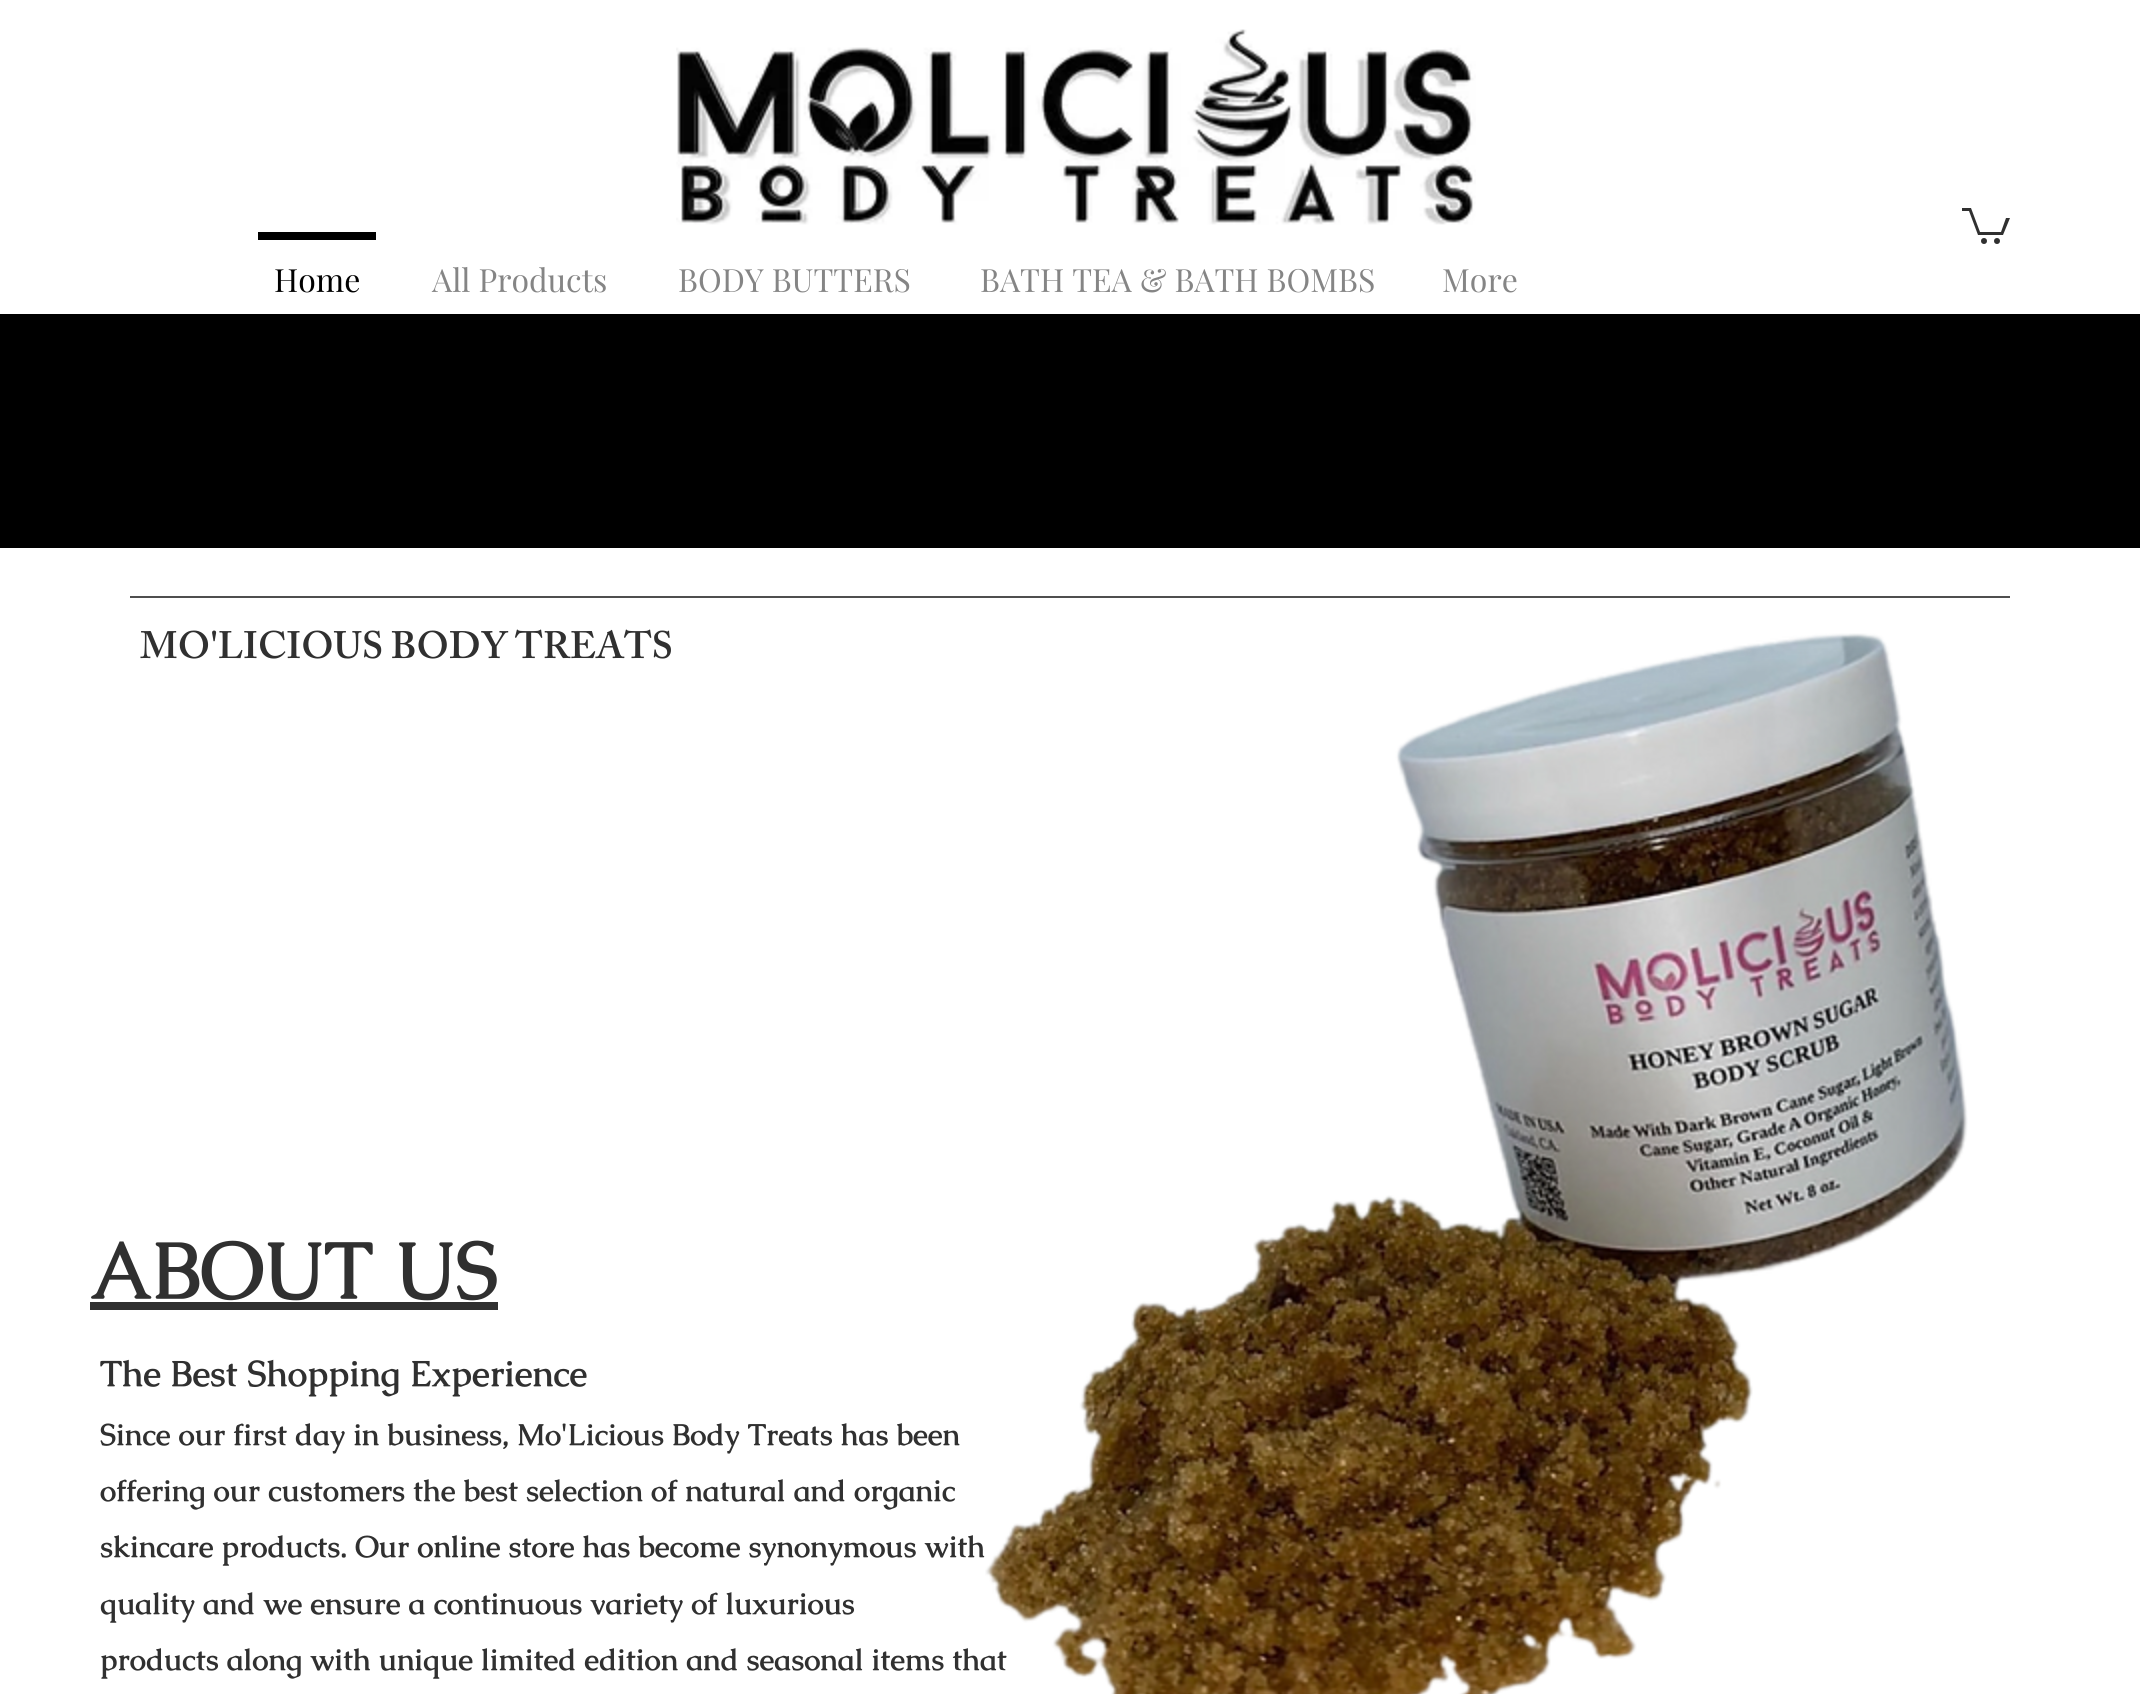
import math
import cairocffi as cairo

surface = cairo.ImageSurface(cairo.FORMAT_RGB24, 2140, 1694)
cr = cairo.Context(surface)
options = cairo.FontOptions()
options.set_hint_metrics(cairo.HINT_METRICS_OFF)
options.set_hint_style(cairo.HINT_STYLE_NONE)
cr.set_font_options(options)
cr.set_miter_limit(4)


def use_color(code):
    cr.set_source_rgb(*(v / 255 for v in bytes.fromhex(code[-6:])))


def picture(path, x, y, w, h):
    cr.save()
    cr.set_source_surface(cairo.ImageSurface.create_from_png(path), x, y)
    cr.rectangle(x, y, w, h)
    cr.fill()
    cr.restore()


use_color("#000000")
cr.paint()
use_color("#ffffff")
cr.rectangle(0, 0, 2140, 314)
cr.fill()
picture("img1.png", 676, 29, 800, 196)
use_color("#303030")
cr.new_path()
cr.move_to(2010, 218)
cr.line_to(2003, 235)
cr.line_to(1978, 235)
cr.line_to(1969, 211)
cr.line_to(1962, 211)
cr.line_to(1962, 208)
cr.line_to(1971, 208)
cr.line_to(1980, 232)
cr.line_to(2001, 232)
cr.line_to(2006, 218)
cr.fill()
cr.arc(1997, 241, 3, 0, 2 * math.pi)
cr.fill()
cr.arc(1984, 241, 3, 0, 2 * math.pi)
cr.fill()
use_color("#000000")
cr.rectangle(258, 232, 118, 8)
cr.fill()
cr.select_font_face("Playfair Display")
cr.set_font_size(32)
cr.move_to(274, 292)
cr.show_text("Home")
use_color("#858585")
cr.move_to(432, 292)
cr.show_text("All Products")
cr.move_to(678, 292)
cr.show_text("BODY BUTTERS")
cr.move_to(980, 292)
cr.show_text("BATH TEA & BATH BOMBS")
cr.move_to(1442, 292)
cr.show_text("More")
use_color("#ffffff")
cr.rectangle(0, 548, 2140, 1146)
cr.fill()
use_color("#4f4f4f")
cr.rectangle(130, 596, 1880, 2)
cr.fill()
cr.select_font_face("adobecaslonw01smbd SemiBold")
cr.set_font_size(38)
use_color("#303030")
cr.move_to(140, 658)
cr.show_text("MO'LICIOUS BODY TREATS")
cr.select_font_face("Caudex", cairo.FONT_SLANT_NORMAL, cairo.FONT_WEIGHT_BOLD)
cr.set_font_size(80)
cr.move_to(90, 1298)
cr.show_text("ABOUT US")
cr.rectangle(90, 1302, 408, 8)
cr.fill()
cr.set_font_size(36)
cr.move_to(100, 1386)
cr.show_text("The Best Shopping Experience")
cr.set_font_size(30)
cr.move_to(100, 1445)
cr.show_text("Since our first day in business, Mo'Licious Body Treats has been")
cr.move_to(100, 1501)
cr.show_text("offering our customers the best selection of natural and organic")
cr.move_to(100, 1557)
cr.show_text("skincare products. Our online store has become synonymous with")
cr.move_to(100, 1614)
cr.show_text("quality and we ensure a continuous variety of luxurious")
cr.move_to(100, 1670)
cr.show_text("products along with unique limited edition and seasonal items that")
picture("img2.png", 985, 633, 983, 1061)
surface.write_to_png("result.png")
